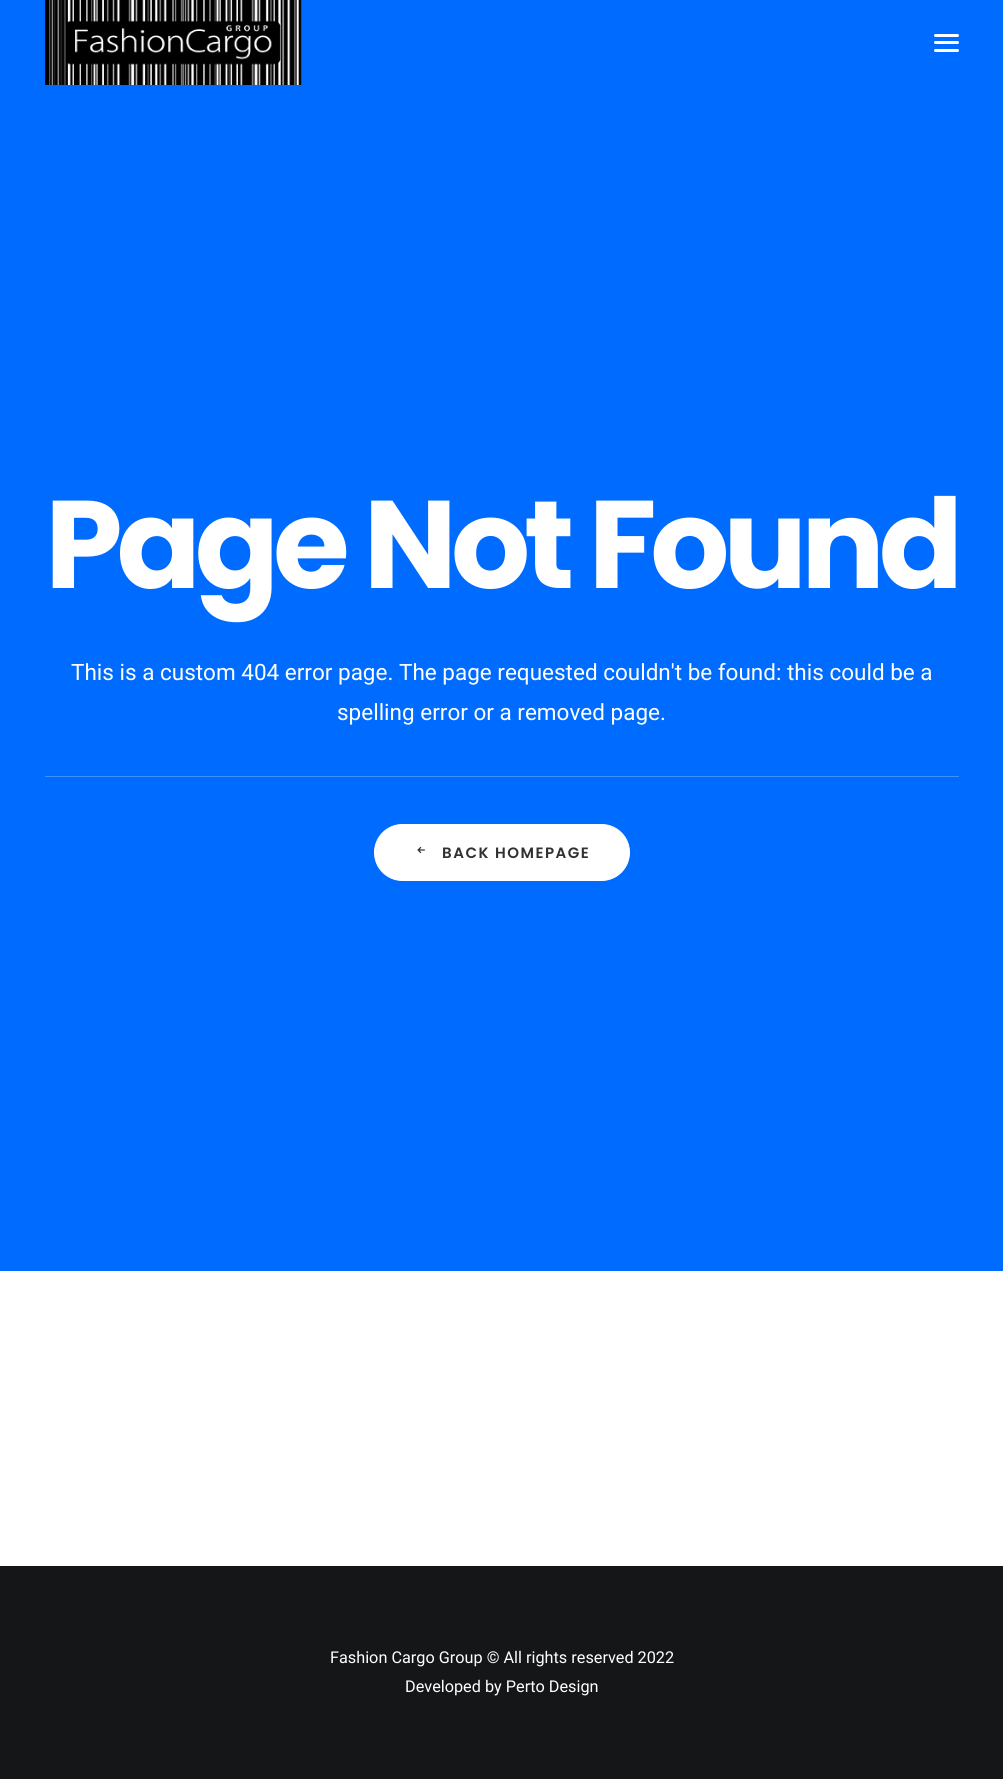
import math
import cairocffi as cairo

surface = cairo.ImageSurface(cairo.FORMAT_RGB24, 1003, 1779)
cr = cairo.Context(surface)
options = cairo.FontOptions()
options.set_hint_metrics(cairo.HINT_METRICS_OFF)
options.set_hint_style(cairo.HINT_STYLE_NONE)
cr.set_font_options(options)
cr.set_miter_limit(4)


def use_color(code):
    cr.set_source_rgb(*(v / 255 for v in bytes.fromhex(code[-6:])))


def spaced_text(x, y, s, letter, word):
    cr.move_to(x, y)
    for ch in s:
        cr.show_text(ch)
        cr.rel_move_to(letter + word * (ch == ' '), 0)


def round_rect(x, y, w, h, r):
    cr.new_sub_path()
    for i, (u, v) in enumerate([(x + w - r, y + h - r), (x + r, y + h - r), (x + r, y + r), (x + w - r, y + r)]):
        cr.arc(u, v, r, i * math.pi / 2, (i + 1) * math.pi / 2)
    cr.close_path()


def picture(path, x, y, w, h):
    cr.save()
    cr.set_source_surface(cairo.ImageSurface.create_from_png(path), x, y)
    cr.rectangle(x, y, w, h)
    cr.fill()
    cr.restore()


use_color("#141618")
cr.paint()
use_color("#006cff")
cr.rectangle(0, 0, 1003, 1271)
cr.fill()
picture("img1.png", 45, 0, 257, 85)
use_color("#ffffff")
round_rect(934, 41, 25, 3, 1.5)
cr.fill()
round_rect(934, 34, 25, 3, 1.5)
cr.fill()
round_rect(934, 49, 25, 3, 1.5)
cr.fill()
cr.select_font_face("Poppins", cairo.FONT_SLANT_NORMAL, cairo.FONT_WEIGHT_BOLD)
cr.set_font_size(124.5)
spaced_text(45, 588, "Page Not Found", -6.25, 0)
cr.select_font_face("Roboto")
cr.set_font_size(22.5)
cr.move_to(71, 680)
cr.show_text("This is a custom 404 error page. The page requested couldn't be found: this could be a")
cr.move_to(337, 720)
cr.show_text("spelling error or a removed page.")
use_color("#4091ff")
cr.rectangle(45, 776, 914, 1)
cr.fill()
use_color("#ffffff")
round_rect(374.5, 824.5, 255, 56, 28)
cr.fill_preserve()
cr.set_line_width(1)
cr.stroke()
picture("img2.png", 417, 846, 8, 8)
cr.select_font_face("Poppins SemiBold")
cr.set_font_size(15)
use_color("#303133")
spaced_text(442, 858, "BACK HOMEPAGE", 1.5, 0)
use_color("#ffffff")
cr.rectangle(0, 1271, 1003, 295)
cr.fill()
cr.select_font_face("Roboto")
cr.set_font_size(16.25)
cr.move_to(330, 1663)
cr.show_text("Fashion Cargo Group © All rights reserved 2022")
cr.move_to(405, 1692)
cr.show_text("Developed by Perto Design")
surface.write_to_png("result.png")
